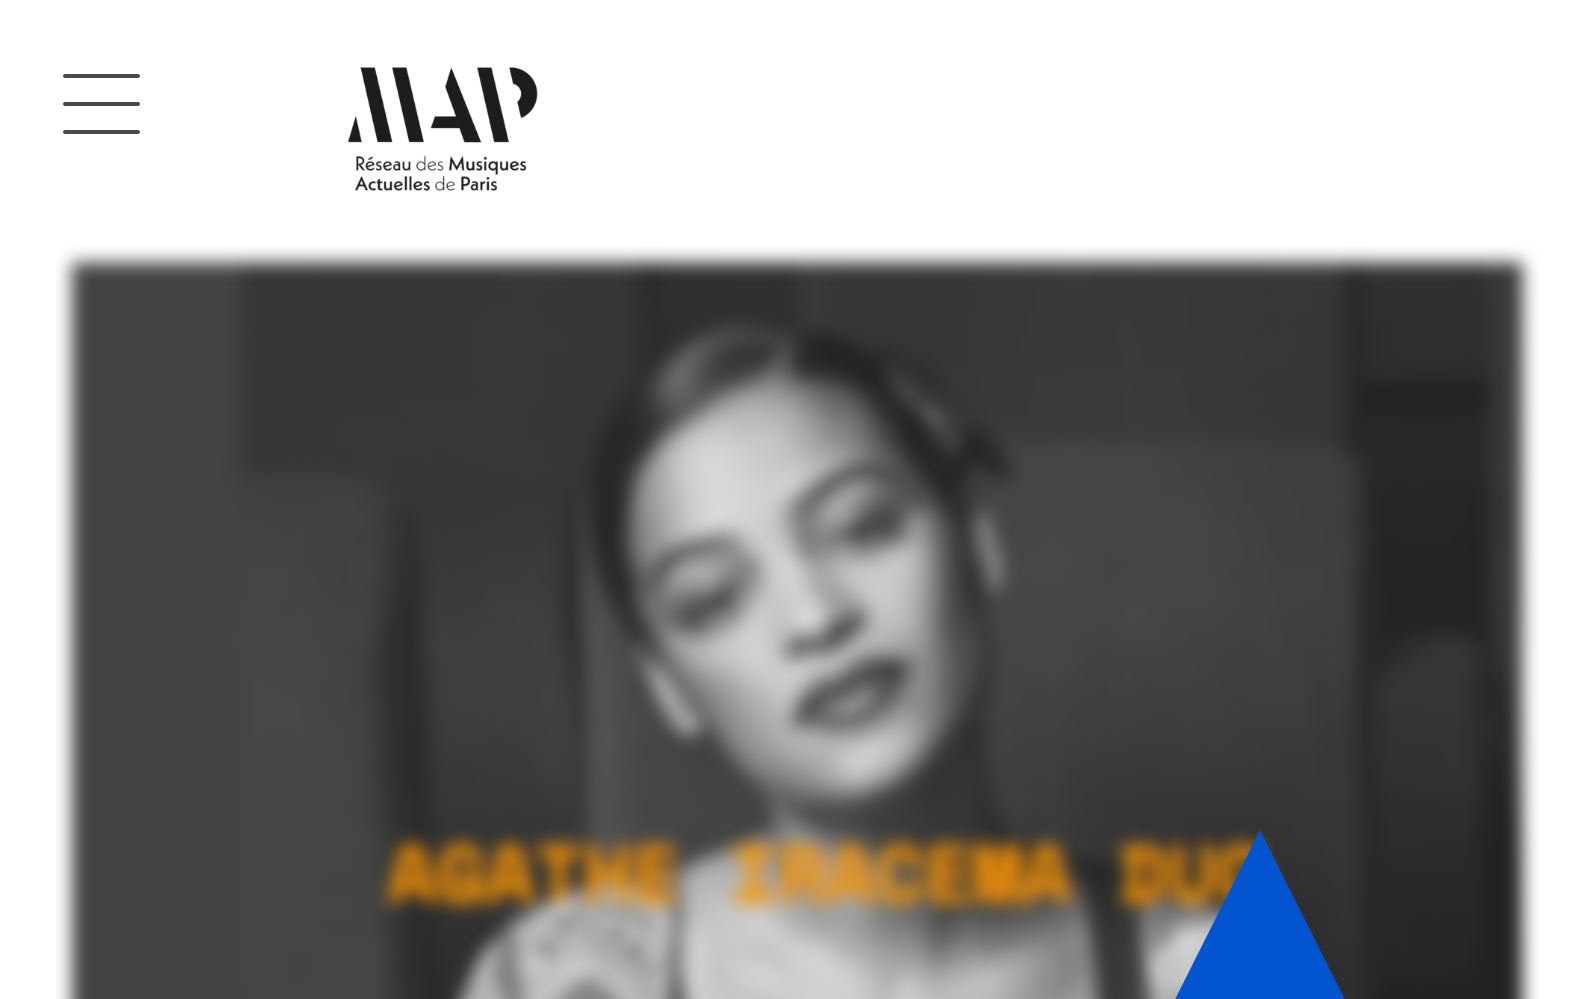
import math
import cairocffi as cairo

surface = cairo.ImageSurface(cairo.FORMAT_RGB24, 1592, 999)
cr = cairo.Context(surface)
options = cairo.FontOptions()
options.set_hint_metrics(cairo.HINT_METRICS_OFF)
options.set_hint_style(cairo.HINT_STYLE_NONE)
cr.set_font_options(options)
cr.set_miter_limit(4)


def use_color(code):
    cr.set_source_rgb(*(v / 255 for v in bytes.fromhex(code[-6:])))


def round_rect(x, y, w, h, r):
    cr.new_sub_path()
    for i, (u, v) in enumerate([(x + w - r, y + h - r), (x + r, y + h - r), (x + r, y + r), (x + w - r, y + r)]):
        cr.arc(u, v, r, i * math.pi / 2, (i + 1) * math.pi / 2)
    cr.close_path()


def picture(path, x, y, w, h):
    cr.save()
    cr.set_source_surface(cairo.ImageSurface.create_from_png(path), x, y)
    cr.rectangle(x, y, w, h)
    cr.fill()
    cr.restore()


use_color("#ffffff")
cr.paint()
use_color("#4a4a4a")
round_rect(63, 74, 77, 4, 2)
cr.fill()
round_rect(63, 102, 77, 4, 2)
cr.fill()
round_rect(63, 130, 77, 4, 2)
cr.fill()
picture("img1.png", 347, 67, 191, 124)
picture("img2.png", 56, 246, 1483, 753)
use_color("#0255cf")
cr.new_path()
cr.move_to(1101, 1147)
cr.line_to(1419, 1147)
cr.line_to(1260, 830)
cr.close_path()
cr.fill()
surface.write_to_png("result.png")
